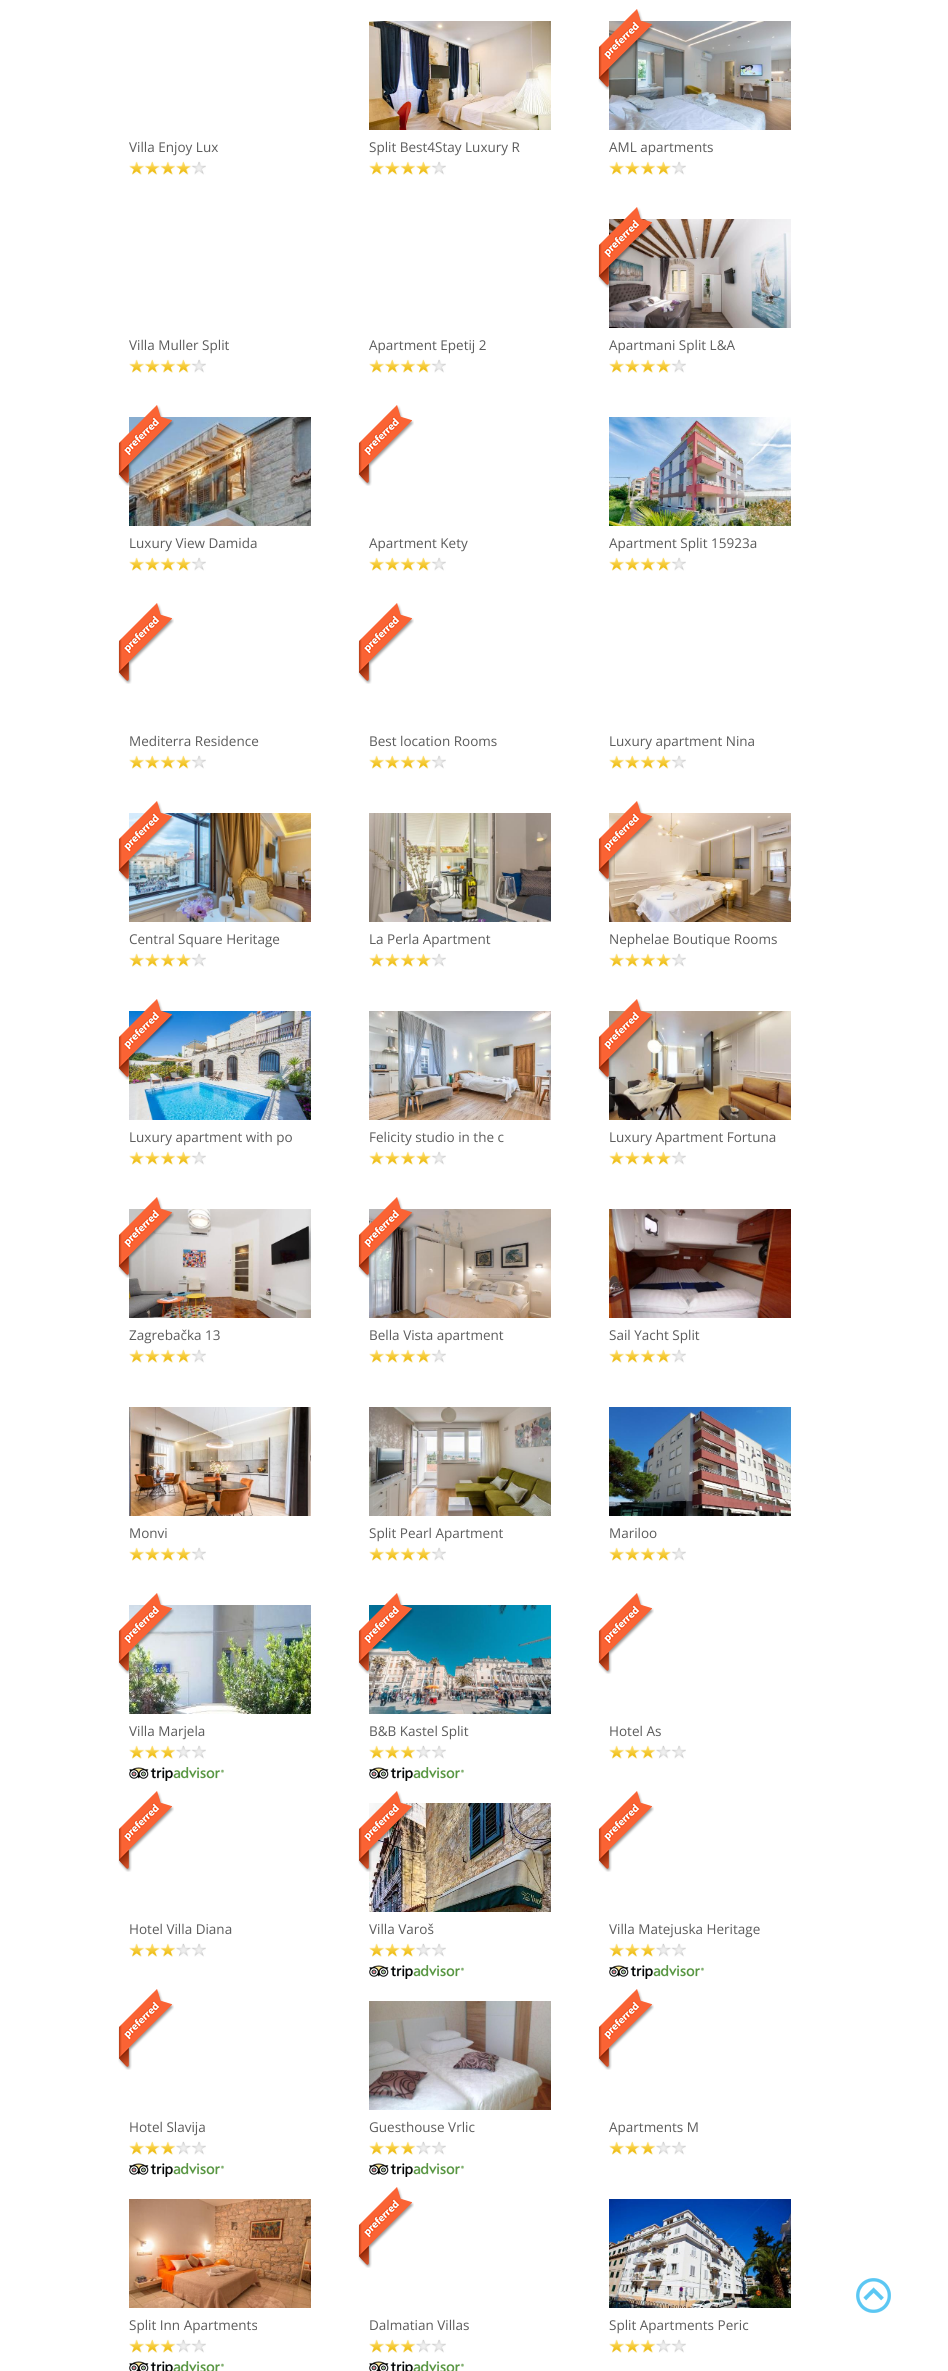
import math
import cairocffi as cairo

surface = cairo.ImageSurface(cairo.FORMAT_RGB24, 948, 2371)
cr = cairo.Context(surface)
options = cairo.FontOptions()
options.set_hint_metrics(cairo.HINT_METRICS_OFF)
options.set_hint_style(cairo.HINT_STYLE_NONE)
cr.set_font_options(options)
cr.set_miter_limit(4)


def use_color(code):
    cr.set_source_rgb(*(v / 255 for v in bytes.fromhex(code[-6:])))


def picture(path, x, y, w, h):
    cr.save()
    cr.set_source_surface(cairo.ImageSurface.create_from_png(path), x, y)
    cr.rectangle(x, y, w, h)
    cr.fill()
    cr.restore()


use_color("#ffffff")
cr.paint()
cr.select_font_face("Open Sans")
cr.set_font_size(13.5)
use_color("#5b5b5b")
cr.move_to(129, 152)
cr.show_text("Villa Enjoy Lux")
picture("img1.png", 129, 161, 77, 14)
picture("img2.png", 369, 21, 182, 109)
cr.move_to(369, 152)
cr.show_text("Split Best4Stay Luxury R")
picture("img3.png", 369, 161, 77, 14)
picture("img5.png", 609, 21, 182, 109)
picture("img4.png", 598, 9, 56, 81)
cr.move_to(609, 152)
cr.show_text("AML apartments")
picture("img1.png", 609, 161, 77, 14)
cr.move_to(129, 350)
cr.show_text("Villa Muller Split")
picture("img1.png", 129, 359, 77, 14)
cr.move_to(369, 350)
cr.show_text("Apartment Epetij 2")
picture("img3.png", 369, 359, 77, 14)
picture("img7.png", 609, 219, 182, 109)
picture("img6.png", 598, 207, 56, 81)
cr.move_to(609, 350)
cr.show_text("Apartmani Split L&A")
picture("img1.png", 609, 359, 77, 14)
picture("img9.png", 129, 417, 182, 109)
picture("img8.png", 118, 405, 56, 81)
cr.move_to(129, 548)
cr.show_text("Luxury View Damida")
picture("img1.png", 129, 557, 77, 14)
picture("img10.png", 358, 405, 56, 81)
cr.move_to(369, 548)
cr.show_text("Apartment Kety")
picture("img3.png", 369, 557, 77, 14)
picture("img11.png", 609, 417, 182, 109)
cr.move_to(609, 548)
cr.show_text("Apartment Split 15923a")
picture("img1.png", 609, 557, 77, 14)
picture("img10.png", 118, 603, 56, 81)
cr.move_to(129, 746)
cr.show_text("Mediterra Residence")
picture("img12.png", 129, 755, 77, 14)
picture("img10.png", 358, 603, 56, 81)
cr.move_to(369, 746)
cr.show_text("Best location Rooms")
picture("img13.png", 369, 755, 77, 14)
cr.move_to(609, 746)
cr.show_text("Luxury apartment Nina")
picture("img12.png", 609, 755, 77, 14)
picture("img15.png", 129, 813, 182, 109)
picture("img14.png", 118, 801, 56, 81)
cr.move_to(129, 944)
cr.show_text("Central Square Heritage")
picture("img1.png", 129, 953, 77, 14)
picture("img16.png", 369, 813, 182, 109)
cr.move_to(369, 944)
cr.show_text("La Perla Apartment")
picture("img3.png", 369, 953, 77, 14)
picture("img18.png", 609, 813, 182, 109)
picture("img17.png", 598, 801, 56, 81)
cr.move_to(609, 944)
cr.show_text("Nephelae Boutique Rooms")
picture("img1.png", 609, 953, 77, 14)
picture("img20.png", 129, 1011, 182, 109)
picture("img19.png", 118, 999, 56, 81)
cr.move_to(129, 1142)
cr.show_text("Luxury apartment with po")
picture("img1.png", 129, 1151, 77, 14)
picture("img21.png", 369, 1011, 182, 109)
cr.move_to(369, 1142)
cr.show_text("Felicity studio in the c")
picture("img3.png", 369, 1151, 77, 14)
picture("img23.png", 609, 1011, 182, 109)
picture("img22.png", 598, 999, 56, 81)
cr.move_to(609, 1142)
cr.show_text("Luxury Apartment Fortuna")
picture("img1.png", 609, 1151, 77, 14)
picture("img25.png", 129, 1209, 182, 109)
picture("img24.png", 118, 1197, 56, 81)
cr.move_to(129, 1340)
cr.show_text("Zagrebačka 13")
picture("img1.png", 129, 1349, 77, 14)
picture("img27.png", 369, 1209, 182, 109)
picture("img26.png", 358, 1197, 56, 81)
cr.move_to(369, 1340)
cr.show_text("Bella Vista apartment")
picture("img3.png", 369, 1349, 77, 14)
picture("img28.png", 609, 1209, 182, 109)
cr.move_to(609, 1340)
cr.show_text("Sail Yacht Split")
picture("img1.png", 609, 1349, 77, 14)
picture("img29.png", 129, 1407, 182, 109)
cr.move_to(129, 1538)
cr.show_text("Monvi")
picture("img1.png", 129, 1547, 77, 14)
picture("img30.png", 369, 1407, 182, 109)
cr.move_to(369, 1538)
cr.show_text("Split Pearl Apartment")
picture("img3.png", 369, 1547, 77, 14)
picture("img31.png", 609, 1407, 182, 109)
cr.move_to(609, 1538)
cr.show_text("Mariloo")
picture("img1.png", 609, 1547, 77, 14)
picture("img33.png", 129, 1605, 182, 109)
picture("img32.png", 118, 1593, 56, 81)
cr.move_to(129, 1736)
cr.show_text("Villa Marjela")
picture("img34.png", 129, 1745, 77, 14)
picture("img35.png", 129, 1767, 95, 14)
picture("img37.png", 369, 1605, 182, 109)
picture("img36.png", 358, 1593, 56, 81)
cr.move_to(369, 1736)
cr.show_text("B&B Kastel Split")
picture("img38.png", 369, 1745, 77, 14)
picture("img35.png", 369, 1767, 95, 14)
picture("img10.png", 598, 1593, 56, 81)
cr.move_to(609, 1736)
cr.show_text("Hotel As")
picture("img34.png", 609, 1745, 77, 14)
picture("img10.png", 118, 1791, 56, 81)
cr.move_to(129, 1934)
cr.show_text("Hotel Villa Diana")
picture("img34.png", 129, 1943, 77, 14)
picture("img40.png", 369, 1803, 182, 109)
picture("img39.png", 358, 1791, 56, 81)
cr.move_to(369, 1934)
cr.show_text("Villa Varoš")
picture("img38.png", 369, 1943, 77, 14)
picture("img35.png", 369, 1965, 95, 14)
picture("img10.png", 598, 1791, 56, 81)
cr.move_to(609, 1934)
cr.show_text("Villa Matejuska Heritage")
picture("img34.png", 609, 1943, 77, 14)
picture("img35.png", 609, 1965, 95, 14)
picture("img10.png", 118, 1989, 56, 81)
cr.move_to(129, 2132)
cr.show_text("Hotel Slavija")
picture("img34.png", 129, 2141, 77, 14)
picture("img35.png", 129, 2163, 95, 14)
picture("img41.png", 369, 2001, 182, 109)
cr.move_to(369, 2132)
cr.show_text("Guesthouse Vrlic")
picture("img38.png", 369, 2141, 77, 14)
picture("img35.png", 369, 2163, 95, 14)
picture("img10.png", 598, 1989, 56, 81)
cr.move_to(609, 2132)
cr.show_text("Apartments M")
picture("img34.png", 609, 2141, 77, 14)
picture("img42.png", 129, 2199, 182, 109)
cr.move_to(129, 2330)
cr.show_text("Split Inn Apartments")
picture("img34.png", 129, 2339, 77, 14)
picture("img43.png", 129, 2361, 95, 10)
picture("img10.png", 358, 2187, 56, 81)
cr.move_to(369, 2330)
cr.show_text("Dalmatian Villas")
picture("img38.png", 369, 2339, 77, 14)
picture("img43.png", 369, 2361, 95, 10)
picture("img44.png", 609, 2199, 182, 109)
cr.move_to(609, 2330)
cr.show_text("Split Apartments Peric")
picture("img34.png", 609, 2339, 77, 14)
picture("img45.png", 856, 2278, 35, 35)
surface.write_to_png("result.png")
